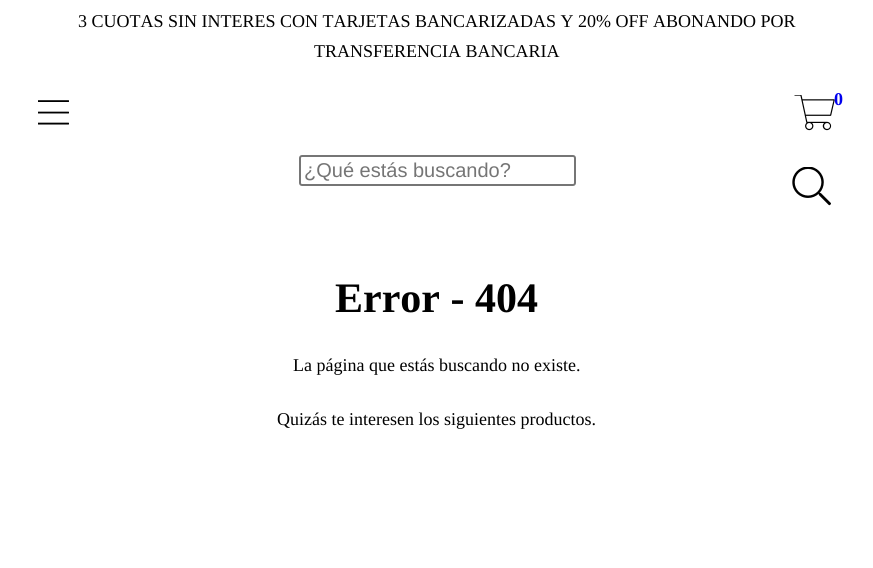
import math
import cairocffi as cairo

surface = cairo.ImageSurface(cairo.FORMAT_RGB24, 873, 568)
cr = cairo.Context(surface)
options = cairo.FontOptions()
options.set_hint_metrics(cairo.HINT_METRICS_OFF)
options.set_hint_style(cairo.HINT_STYLE_NONE)
cr.set_font_options(options)
cr.set_miter_limit(4)


def use_color(code):
    cr.set_source_rgb(*(v / 255 for v in bytes.fromhex(code[-6:])))


def round_rect(x, y, w, h, r):
    cr.new_sub_path()
    for i, (u, v) in enumerate([(x + w - r, y + h - r), (x + r, y + h - r), (x + r, y + r), (x + w - r, y + r)]):
        cr.arc(u, v, r, i * math.pi / 2, (i + 1) * math.pi / 2)
    cr.close_path()


def picture(path, x, y, w, h):
    cr.save()
    cr.set_source_surface(cairo.ImageSurface.create_from_png(path), x, y)
    cr.rectangle(x, y, w, h)
    cr.fill()
    cr.restore()


use_color("#ffffff")
cr.paint()
cr.select_font_face("Liberation Serif")
cr.set_font_size(18)
use_color("#000000")
cr.move_to(78, 27)
cr.show_text("3 CUOTAS SIN INTERES CON TARJETAS BANCARIZADAS Y 20% OFF ABONANDO POR")
cr.move_to(314, 57)
cr.show_text("TRANSFERENCIA BANCARIA")
picture("img1.png", 38, 100, 31, 25)
picture("img2.png", 794, 95, 41, 36)
cr.select_font_face("Liberation Serif", cairo.FONT_SLANT_NORMAL, cairo.FONT_WEIGHT_BOLD)
use_color("#0000ee")
cr.move_to(834, 105)
cr.show_text("0")
round_rect(300, 156, 275, 29, 2)
use_color("#767676")
cr.stroke()
cr.select_font_face("Liberation Sans")
cr.set_font_size(20)
use_color("#757575")
cr.move_to(304, 177)
cr.show_text("¿Qué estás buscando?")
picture("img3.png", 792, 167, 39, 39)
cr.select_font_face("Liberation Serif", cairo.FONT_SLANT_NORMAL, cairo.FONT_WEIGHT_BOLD)
cr.set_font_size(42)
use_color("#000000")
cr.move_to(335, 312)
cr.show_text("Error - 404")
cr.select_font_face("Liberation Serif")
cr.set_font_size(18)
cr.move_to(293, 371)
cr.show_text("La página que estás buscando no existe.")
cr.move_to(277, 425)
cr.show_text("Quizás te interesen los siguientes productos.")
surface.write_to_png("result.png")
